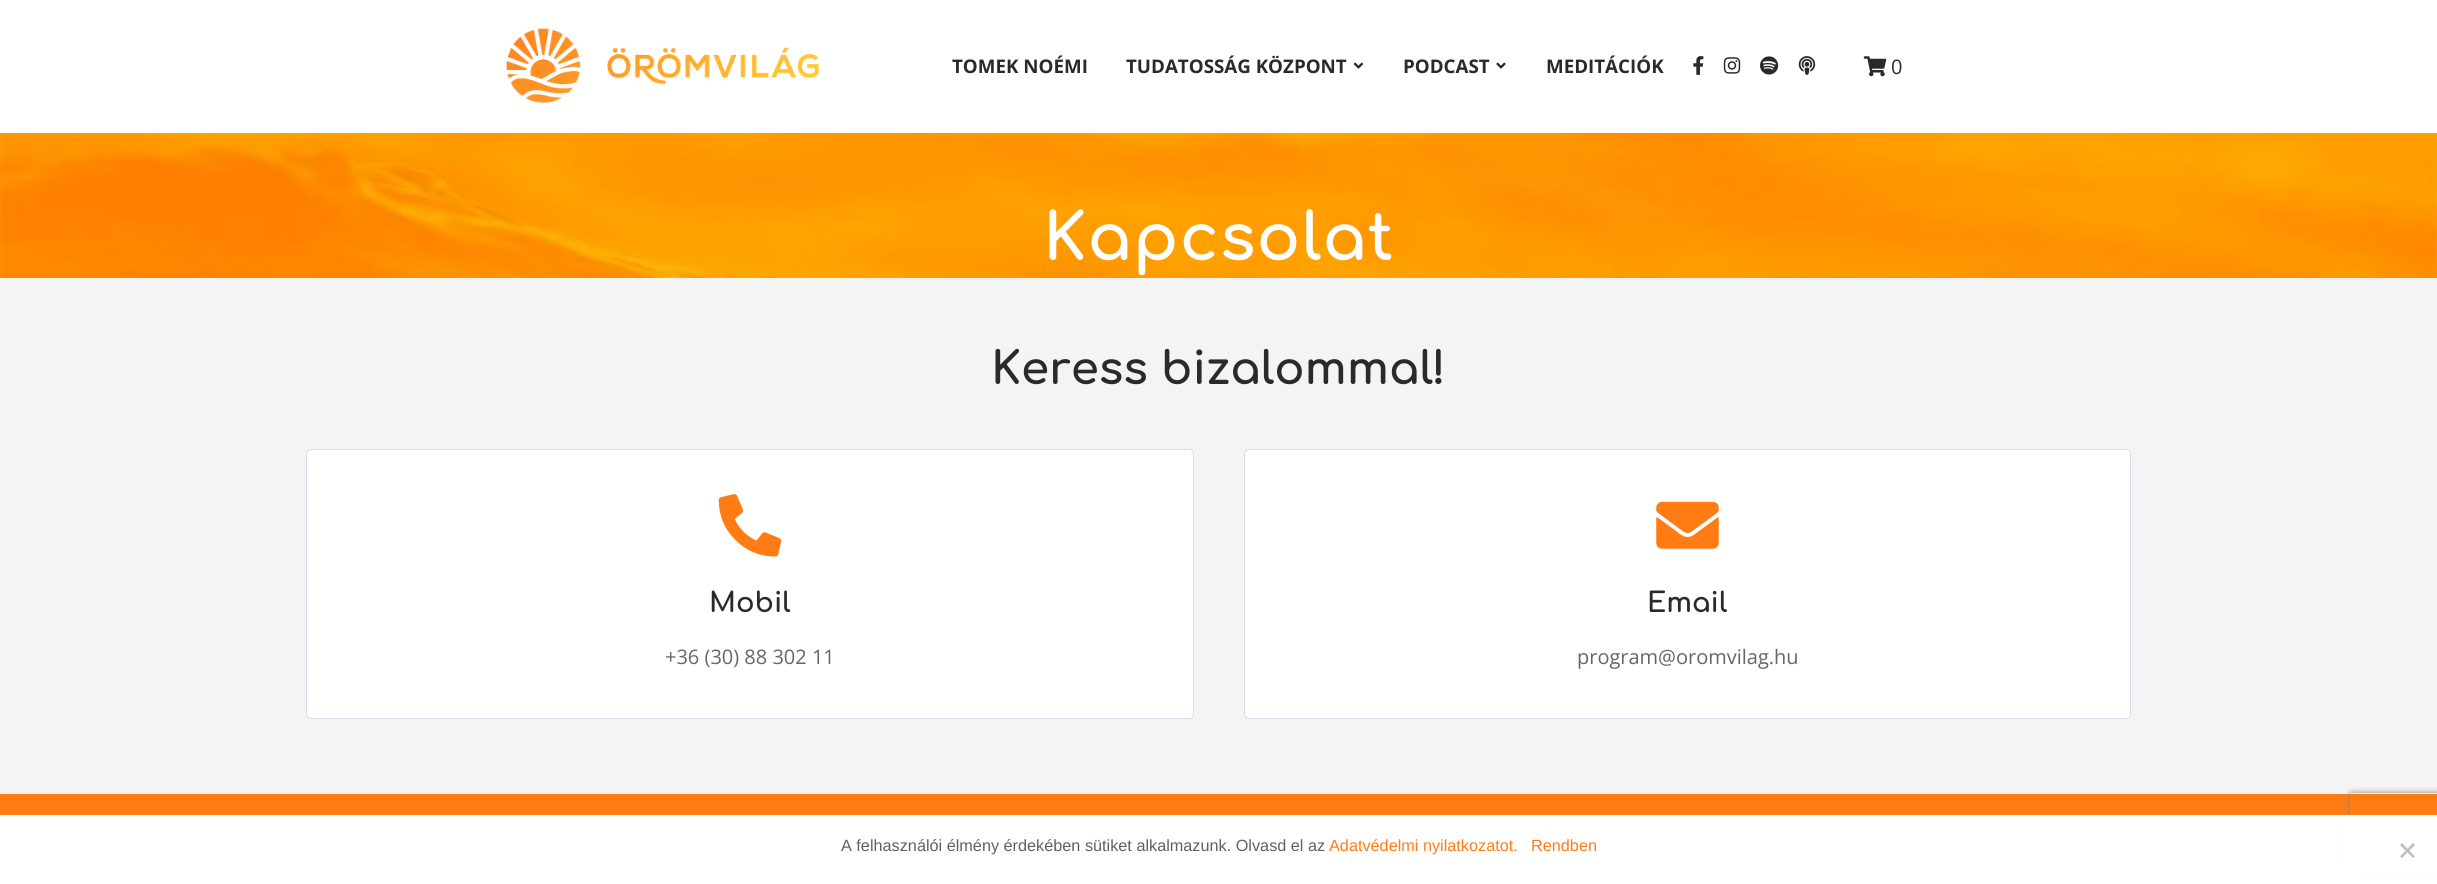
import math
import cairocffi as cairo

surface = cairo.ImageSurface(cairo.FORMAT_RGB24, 2437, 884)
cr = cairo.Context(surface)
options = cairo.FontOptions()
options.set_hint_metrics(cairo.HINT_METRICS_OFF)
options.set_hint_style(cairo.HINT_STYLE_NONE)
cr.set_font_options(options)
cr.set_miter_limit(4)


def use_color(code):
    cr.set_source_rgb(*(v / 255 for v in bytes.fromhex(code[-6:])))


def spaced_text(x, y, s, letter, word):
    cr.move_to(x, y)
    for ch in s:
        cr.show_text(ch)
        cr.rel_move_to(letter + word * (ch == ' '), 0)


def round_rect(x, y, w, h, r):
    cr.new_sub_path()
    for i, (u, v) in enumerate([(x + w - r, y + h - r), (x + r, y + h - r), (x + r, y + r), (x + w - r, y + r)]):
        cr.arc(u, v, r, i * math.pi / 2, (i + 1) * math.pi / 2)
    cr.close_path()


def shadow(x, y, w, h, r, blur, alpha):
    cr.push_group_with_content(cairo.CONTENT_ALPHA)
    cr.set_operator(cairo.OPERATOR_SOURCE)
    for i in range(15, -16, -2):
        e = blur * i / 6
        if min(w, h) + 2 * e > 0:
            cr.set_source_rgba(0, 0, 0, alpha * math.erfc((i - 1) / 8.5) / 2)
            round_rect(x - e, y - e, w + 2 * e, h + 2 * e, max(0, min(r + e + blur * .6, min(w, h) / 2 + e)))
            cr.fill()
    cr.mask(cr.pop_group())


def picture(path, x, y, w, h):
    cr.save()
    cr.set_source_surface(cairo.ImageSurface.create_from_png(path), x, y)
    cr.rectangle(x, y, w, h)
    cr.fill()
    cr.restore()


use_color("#ffffff")
cr.paint()
picture("img1.png", 506, 28, 313, 75)
cr.select_font_face("Open Sans", cairo.FONT_SLANT_NORMAL, cairo.FONT_WEIGHT_BOLD)
cr.set_font_size(18.75)
use_color("#2a2a2a")
cr.move_to(952, 73)
cr.show_text("TOMEK NOÉMI")
cr.move_to(1126, 73)
cr.show_text("TUDATOSSÁG KÖZPONT")
picture("img2.png", 1353, 62, 11, 7)
cr.move_to(1403, 73)
cr.show_text("PODCAST")
picture("img3.png", 1496, 62, 10, 7)
cr.move_to(1546, 73)
cr.show_text("MEDITÁCIÓK")
picture("img4.png", 1693, 56, 11, 19)
picture("img5.png", 1723, 57, 18, 17)
picture("img6.png", 1760, 56, 19, 19)
picture("img7.png", 1798, 56, 18, 19)
picture("img8.png", 1863, 56, 24, 21)
cr.select_font_face("Open Sans")
cr.set_font_size(20)
cr.move_to(1891, 74)
cr.show_text("0")
picture("img9.png", 0, 133, 2437, 145)
cr.select_font_face("Comfortaa", cairo.FONT_SLANT_NORMAL, cairo.FONT_WEIGHT_BOLD)
cr.set_font_size(65)
use_color("#ffffff")
spaced_text(1043, 260, "Kapcsolat", 1.25, 0)
use_color("#f4f4f4")
cr.rectangle(0, 278, 2437, 516)
cr.fill()
cr.set_font_size(45)
use_color("#2a2a2a")
cr.move_to(991, 384)
cr.show_text("Keress bizalommal!")
use_color("#ffffff")
round_rect(306.5, 449.5, 887, 269, 4.5)
cr.fill_preserve()
use_color("#d3ddec")
cr.set_line_width(1)
cr.stroke()
picture("img10.png", 718, 494, 64, 63)
cr.set_font_size(27.5)
use_color("#2a2a2a")
cr.move_to(709, 612)
cr.show_text("Mobil")
cr.select_font_face("Open Sans")
cr.set_font_size(20)
use_color("#666666")
cr.move_to(665, 664)
cr.show_text("+36 (30) 88 302 11")
use_color("#ffffff")
round_rect(1244.5, 449.5, 886, 269, 4.5)
cr.fill_preserve()
use_color("#d3ddec")
cr.stroke()
picture("img11.png", 1656, 501, 63, 48)
cr.select_font_face("Comfortaa", cairo.FONT_SLANT_NORMAL, cairo.FONT_WEIGHT_BOLD)
cr.set_font_size(27.5)
use_color("#2a2a2a")
cr.move_to(1647, 612)
cr.show_text("Email")
cr.select_font_face("Open Sans")
cr.set_font_size(20)
use_color("#666666")
cr.move_to(1577, 664)
cr.show_text("program@oromvilag.hu")
use_color("#ff7c15")
cr.rectangle(0, 794, 2437, 21)
cr.fill()
cr.save()
cr.set_fill_rule(cairo.FILL_RULE_EVEN_ODD)
cr.new_path()
cr.move_to(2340, 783)
cr.line_to(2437, 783)
cr.line_to(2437, 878)
cr.line_to(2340, 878)
cr.close_path()
cr.move_to(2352.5, 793)
cr.line_to(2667.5, 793)
cr.curve_to(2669, 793, 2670, 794, 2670, 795.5)
cr.line_to(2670, 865.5)
cr.curve_to(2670, 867, 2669, 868, 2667.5, 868)
cr.line_to(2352.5, 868)
cr.curve_to(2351, 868, 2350, 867, 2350, 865.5)
cr.line_to(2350, 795.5)
cr.curve_to(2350, 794, 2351, 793, 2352.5, 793)
cr.close_path()
cr.clip()
use_color("#808080")
shadow(2350, 793, 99, 75, 2.5, 3, 1)
cr.restore()
use_color("#ffffff")
cr.rectangle(2344, 815, 93, 59)
cr.fill()
cr.select_font_face("Liberation Sans")
cr.set_font_size(16.25)
use_color("#606060")
cr.move_to(841, 851)
cr.show_text("A felhasználói élmény érdekében sütiket alkalmazunk. Olvasd el az")
use_color("#ff7c15")
cr.move_to(1329, 851)
cr.show_text("Adatvédelmi nyilatkozatot.")
cr.move_to(1531, 851)
cr.show_text("Rendben")
use_color("#c0c0c0")
cr.new_path()
cr.move_to(2413, 843)
cr.line_to(2415, 845)
cr.line_to(2402, 858)
cr.line_to(2400, 856.5)
cr.close_path()
cr.fill()
cr.new_path()
cr.move_to(2400, 845)
cr.line_to(2402, 843)
cr.line_to(2415, 856.5)
cr.line_to(2413, 858)
cr.close_path()
cr.fill()
surface.write_to_png("result.png")
